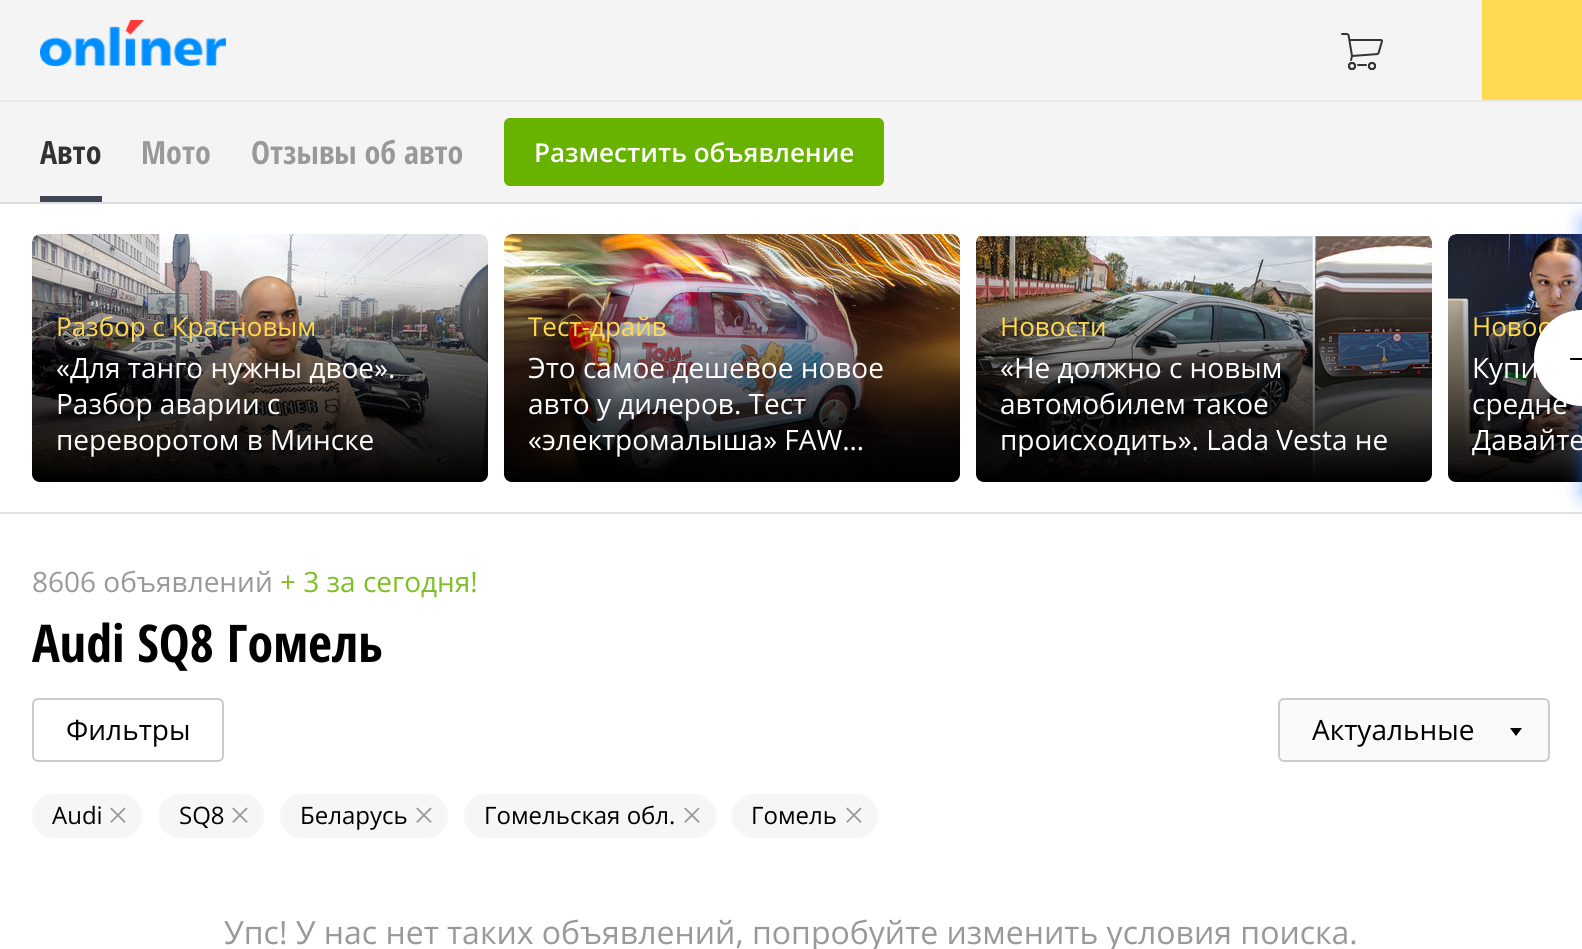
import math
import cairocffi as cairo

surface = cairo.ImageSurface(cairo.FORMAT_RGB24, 1582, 949)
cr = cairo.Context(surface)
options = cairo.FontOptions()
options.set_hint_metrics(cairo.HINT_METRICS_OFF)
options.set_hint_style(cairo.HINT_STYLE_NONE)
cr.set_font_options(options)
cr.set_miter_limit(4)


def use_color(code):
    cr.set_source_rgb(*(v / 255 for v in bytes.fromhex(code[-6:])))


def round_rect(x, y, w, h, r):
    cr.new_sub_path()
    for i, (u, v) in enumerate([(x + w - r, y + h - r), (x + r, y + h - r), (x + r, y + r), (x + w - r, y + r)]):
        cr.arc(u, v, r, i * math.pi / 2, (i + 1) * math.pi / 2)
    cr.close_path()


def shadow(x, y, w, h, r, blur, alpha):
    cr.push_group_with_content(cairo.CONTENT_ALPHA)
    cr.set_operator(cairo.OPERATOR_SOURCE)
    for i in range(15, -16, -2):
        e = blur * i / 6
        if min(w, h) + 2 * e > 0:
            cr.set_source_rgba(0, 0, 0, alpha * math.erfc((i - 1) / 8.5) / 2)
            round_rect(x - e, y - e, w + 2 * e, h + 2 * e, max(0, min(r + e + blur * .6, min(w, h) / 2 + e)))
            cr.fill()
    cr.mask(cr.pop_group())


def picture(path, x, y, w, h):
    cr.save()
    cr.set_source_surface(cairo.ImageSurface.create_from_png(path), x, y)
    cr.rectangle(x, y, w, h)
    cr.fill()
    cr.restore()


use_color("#ffffff")
cr.paint()
use_color("#f4f4f4")
cr.rectangle(0, 0, 1482, 100)
cr.fill()
use_color("#e8e8e8")
cr.rectangle(0, 100, 1582, 2)
cr.fill()
picture("img1.png", 40, 20, 186, 46)
picture("img2.png", 1341, 33, 42, 37)
use_color("#ffda50")
cr.rectangle(1482, 0, 100, 100)
cr.fill()
use_color("#f4f4f4")
cr.rectangle(0, 102, 1582, 100)
cr.fill()
use_color("#dddddd")
cr.rectangle(0, 202, 1582, 2)
cr.fill()
cr.select_font_face("Open Sans Condensed", cairo.FONT_SLANT_NORMAL, cairo.FONT_WEIGHT_BOLD)
cr.set_font_size(32)
use_color("#333333")
cr.move_to(40, 164)
cr.show_text("Авто")
use_color("#3e4753")
cr.rectangle(40, 196, 62, 6)
cr.fill()
use_color("#999999")
cr.move_to(141, 164)
cr.show_text("Мото")
cr.move_to(251, 164)
cr.show_text("Отзывы об авто")
use_color("#68b300")
round_rect(504, 118, 380, 68, 6)
cr.fill()
cr.select_font_face("Open Sans SemiBold")
cr.set_font_size(26)
use_color("#ffffff")
cr.move_to(534, 162)
cr.show_text("Разместить объявление")
use_color("#e2e2e2")
cr.rectangle(0, 512, 1582, 2)
cr.fill()
picture("img7.png", 1448, 234, 134, 248)
gradient = cairo.LinearGradient(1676, 234, 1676, 482)
gradient.add_color_stop_rgba(0, 0, 0, 0, 0)
gradient.add_color_stop_rgba(0.16, 0, 0, 0, 0)
gradient.add_color_stop_rgba(1, 0, 0, 0, 1)
cr.set_source(gradient)
cr.new_path()
cr.move_to(1456, 234)
cr.line_to(1582, 234)
cr.line_to(1582, 482)
cr.line_to(1456, 482)
cr.curve_to(1451.5, 482, 1448, 478.5, 1448, 474)
cr.line_to(1448, 242)
cr.curve_to(1448, 237.5, 1451.5, 234, 1456, 234)
cr.close_path()
cr.fill()
use_color("#000000")
shadow(1534, 314, 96, 96, 48, 15, 0.15)
use_color("#2979ff")
shadow(1582, 220, 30, 276, 0, 10, 0.5)
cr.select_font_face("Open Sans")
use_color("#ffda50")
cr.move_to(1472, 336)
cr.show_text("Новос")
use_color("#ffffff")
cr.new_path()
cr.move_to(1582, 310)
cr.line_to(1582, 406)
cr.curve_to(1555.5, 406, 1534, 384.5, 1534, 358)
cr.curve_to(1534, 331.5, 1555.5, 310, 1582, 310)
cr.close_path()
cr.fill()
picture("img3.png", 1570, 358, 12, 2)
picture("img4.png", 32, 234, 456, 248)
gradient = cairo.LinearGradient(260, 234, 260, 482)
gradient.add_color_stop_rgba(0, 0, 0, 0, 0)
gradient.add_color_stop_rgba(0.16, 0, 0, 0, 0)
gradient.add_color_stop_rgba(1, 0, 0, 0, 1)
cr.set_source(gradient)
round_rect(32, 234, 456, 248, 8)
cr.fill()
cr.save()
cr.rectangle(56, 310, 408, 32)
cr.clip()
use_color("#ffda50")
cr.move_to(56, 336)
cr.show_text("Разбор с Красновым")
cr.restore()
cr.set_font_size(28)
use_color("#ffffff")
cr.move_to(56, 378)
cr.show_text("«Для танго нужны двое».")
cr.move_to(56, 414)
cr.show_text("Разбор аварии с")
cr.move_to(56, 450)
cr.show_text("переворотом в Минске")
picture("img5.png", 504, 234, 456, 248)
gradient = cairo.LinearGradient(732, 234, 732, 482)
gradient.add_color_stop_rgba(0, 0, 0, 0, 0)
gradient.add_color_stop_rgba(0.16, 0, 0, 0, 0)
gradient.add_color_stop_rgba(1, 0, 0, 0, 1)
cr.set_source(gradient)
round_rect(504, 234, 456, 248, 8)
cr.fill()
cr.set_font_size(26)
use_color("#ffda50")
cr.move_to(528, 336)
cr.show_text("Тест-драйв")
cr.set_font_size(28)
use_color("#ffffff")
cr.move_to(528, 378)
cr.show_text("Это самое дешевое новое")
cr.move_to(528, 414)
cr.show_text("авто у дилеров. Тест")
cr.move_to(528, 450)
cr.show_text("«электромалыша» FAW…")
picture("img6.png", 976, 234, 456, 248)
gradient = cairo.LinearGradient(1204, 234, 1204, 482)
gradient.add_color_stop_rgba(0, 0, 0, 0, 0)
gradient.add_color_stop_rgba(0.16, 0, 0, 0, 0)
gradient.add_color_stop_rgba(1, 0, 0, 0, 1)
cr.set_source(gradient)
round_rect(976, 234, 456, 248, 8)
cr.fill()
cr.set_font_size(26)
use_color("#ffda50")
cr.move_to(1000, 336)
cr.show_text("Новости")
cr.set_font_size(28)
use_color("#ffffff")
cr.move_to(1000, 378)
cr.show_text("«Не должно с новым")
cr.move_to(1000, 414)
cr.show_text("автомобилем такое")
cr.move_to(1000, 450)
cr.show_text("происходить». Lada Vesta не")
cr.move_to(1472, 378)
cr.show_text("Купи")
cr.move_to(1472, 414)
cr.show_text("средне")
cr.move_to(1472, 450)
cr.show_text("Давайте")
use_color("#999999")
cr.move_to(32, 592)
cr.show_text("8606 объявлений")
use_color("#7dbf26")
cr.move_to(280, 592)
cr.show_text("+ 3 за сегодня!")
cr.select_font_face("Open Sans Condensed", cairo.FONT_SLANT_NORMAL, cairo.FONT_WEIGHT_BOLD)
cr.set_font_size(52)
use_color("#000000")
cr.move_to(32, 662)
cr.show_text("Audi SQ8 Гомель")
round_rect(33, 699, 190, 62, 5)
use_color("#cccccc")
cr.stroke()
cr.select_font_face("Open Sans")
cr.set_font_size(28)
use_color("#000000")
cr.move_to(66, 740)
cr.show_text("Фильтры")
use_color("#fafafa")
round_rect(1279, 699, 270, 62, 5)
cr.fill_preserve()
use_color("#cccccc")
cr.stroke()
use_color("#000000")
cr.move_to(1312, 740)
cr.show_text("Актуальные")
cr.new_path()
cr.move_to(1510, 728)
cr.line_to(1522, 728)
cr.line_to(1516, 736)
cr.close_path()
cr.fill()
use_color("#f6f6f6")
round_rect(32, 794, 110, 44, 22)
cr.fill()
cr.set_font_size(24)
use_color("#000000")
cr.move_to(52, 824)
cr.show_text("Audi")
picture("img8.png", 110, 807, 16, 16)
use_color("#f6f6f6")
round_rect(158, 794, 106, 44, 22)
cr.fill()
use_color("#000000")
cr.move_to(179, 824)
cr.show_text("SQ8")
picture("img8.png", 232, 807, 16, 16)
use_color("#f6f6f6")
round_rect(280, 794, 168, 44, 22)
cr.fill()
use_color("#000000")
cr.move_to(300, 824)
cr.show_text("Беларусь")
picture("img8.png", 416, 807, 16, 16)
use_color("#f6f6f6")
round_rect(464, 794, 252, 44, 22)
cr.fill()
use_color("#000000")
cr.move_to(484, 824)
cr.show_text("Гомельская обл.")
picture("img8.png", 684, 807, 16, 16)
use_color("#f6f6f6")
round_rect(732, 794, 146, 44, 22)
cr.fill()
use_color("#000000")
cr.move_to(751, 824)
cr.show_text("Гомель")
picture("img8.png", 846, 807, 16, 16)
cr.set_font_size(32)
use_color("#999999")
cr.move_to(224, 944)
cr.show_text("Упс! У нас нет таких объявлений, попробуйте изменить условия поиска.")
surface.write_to_png("result.png")
